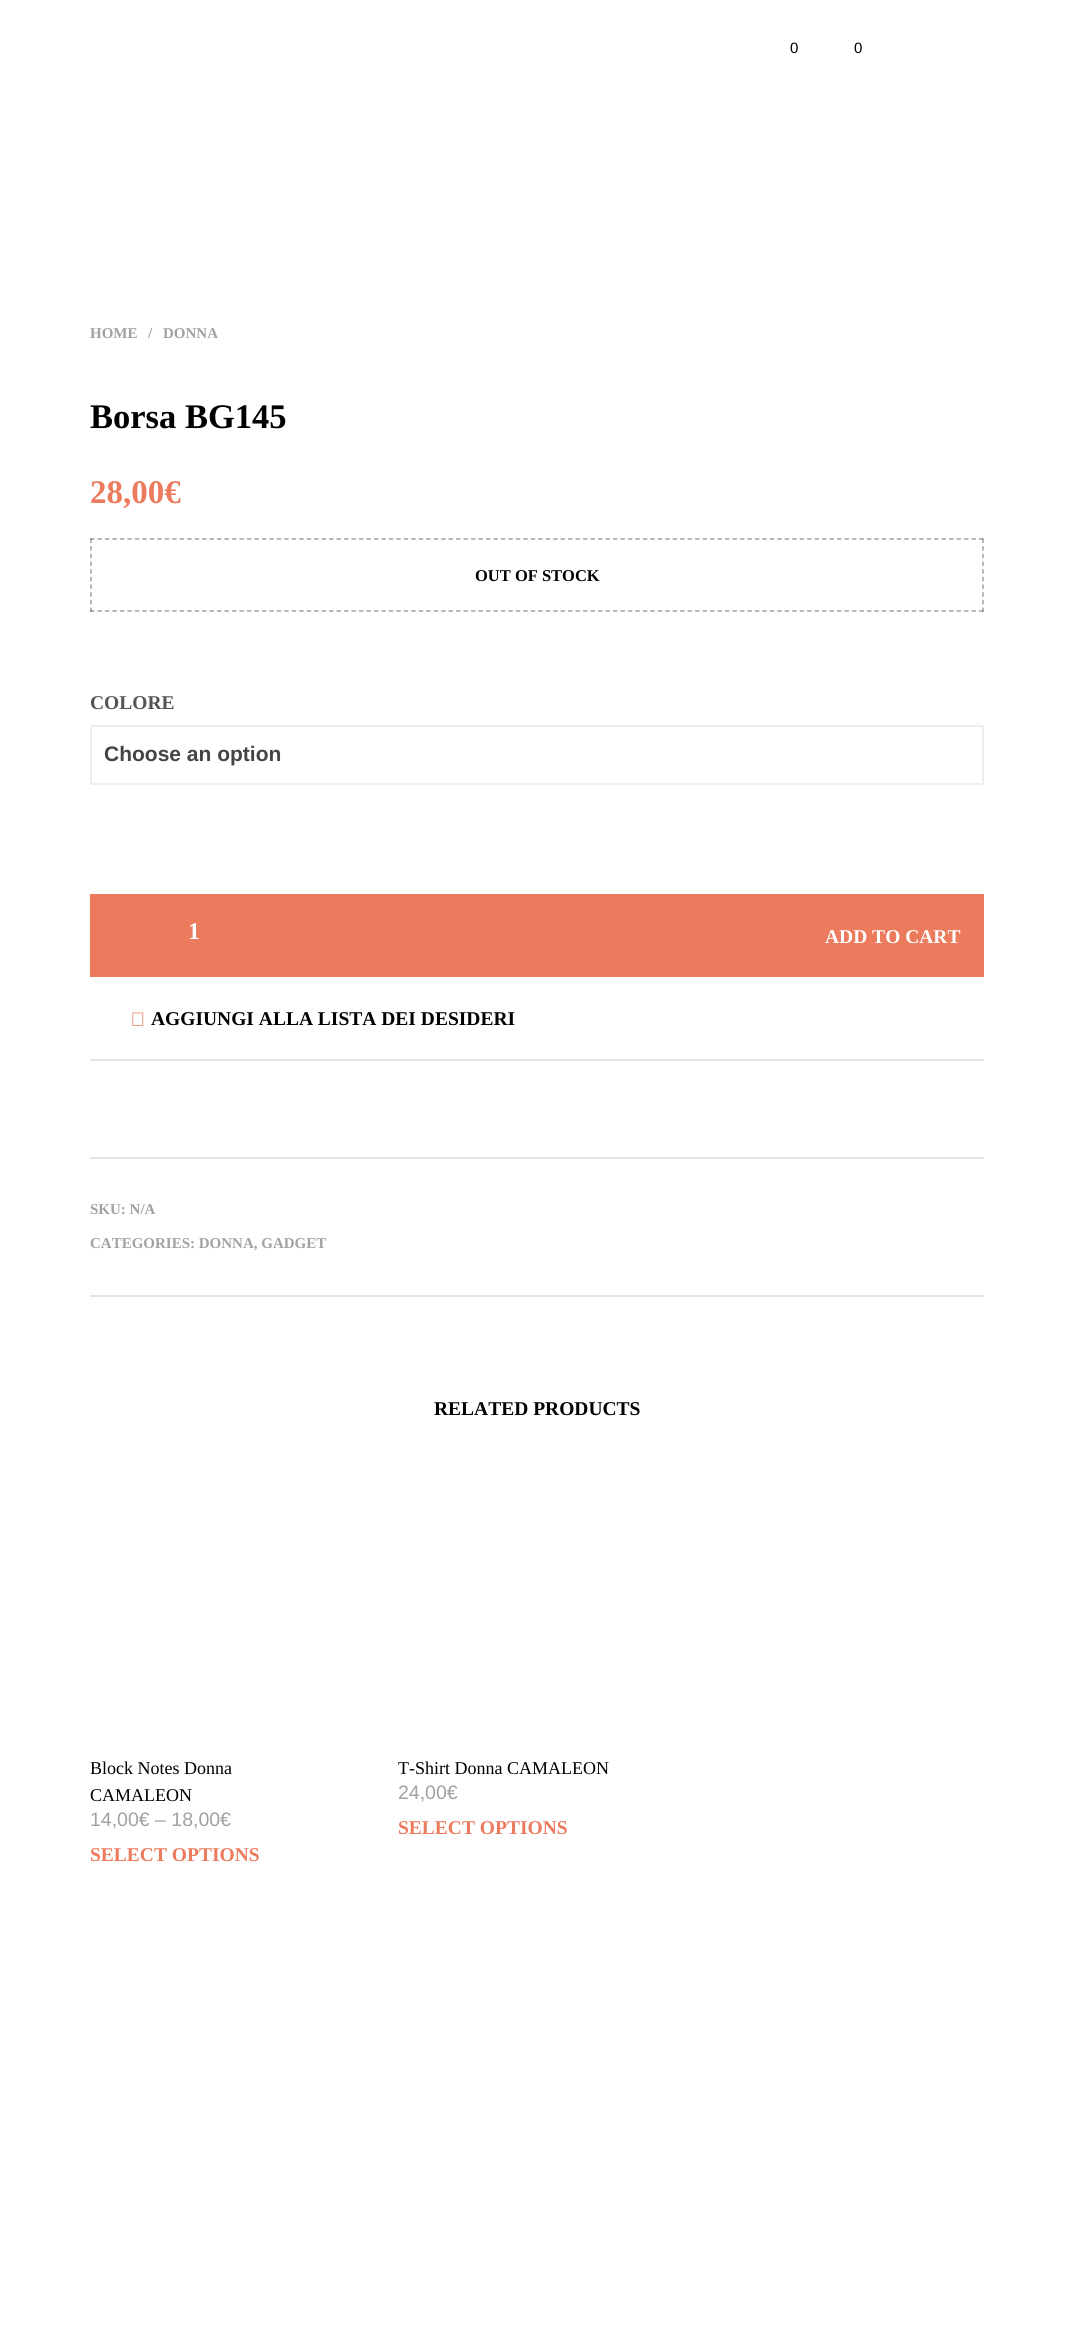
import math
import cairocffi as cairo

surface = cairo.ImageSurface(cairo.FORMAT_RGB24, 1074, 2330)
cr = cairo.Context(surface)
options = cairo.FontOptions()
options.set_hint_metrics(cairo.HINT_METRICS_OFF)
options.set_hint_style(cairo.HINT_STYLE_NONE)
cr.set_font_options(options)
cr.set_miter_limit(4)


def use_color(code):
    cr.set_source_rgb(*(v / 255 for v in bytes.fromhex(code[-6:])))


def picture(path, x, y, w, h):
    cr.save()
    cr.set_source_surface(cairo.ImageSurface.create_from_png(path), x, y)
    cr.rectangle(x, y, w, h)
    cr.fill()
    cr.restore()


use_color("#ffffff")
cr.paint()
cr.select_font_face("Liberation Sans")
cr.set_font_size(15)
use_color("#000000")
cr.move_to(790, 53)
cr.show_text("0")
cr.move_to(854, 53)
cr.show_text("0")
cr.select_font_face("Liberation Serif", cairo.FONT_SLANT_NORMAL, cairo.FONT_WEIGHT_BOLD)
use_color("#a1a1a1")
cr.move_to(90, 338)
cr.show_text("HOME")
cr.move_to(148, 338)
cr.show_text("/")
cr.move_to(163, 338)
cr.show_text("DONNA")
cr.set_font_size(34.5)
use_color("#000000")
cr.move_to(90, 428)
cr.show_text("Borsa BG145")
cr.set_font_size(33)
use_color("#ec7a5c")
cr.move_to(90, 503)
cr.show_text("28,00€")
cr.new_path()
cr.move_to(90, 539)
cr.line_to(984, 539)
use_color("#a1a1a1")
cr.set_line_width(1.5)
cr.set_dash([4.5, 2.97])
cr.stroke()
cr.new_path()
cr.move_to(983, 538.5)
cr.line_to(983, 612)
cr.set_source_rgba(0.329, 0.329, 0.329, 0.55)
cr.set_dash([4.5, 3.17])
cr.stroke()
cr.new_path()
cr.move_to(90, 611)
cr.line_to(984, 611)
cr.set_dash([4.5, 2.97])
cr.stroke()
cr.new_path()
cr.move_to(91, 538.5)
cr.line_to(91, 612)
cr.set_dash([4.5, 3.17])
cr.stroke()
cr.set_font_size(16.5)
use_color("#000000")
cr.move_to(475, 581)
cr.show_text("OUT OF STOCK")
cr.set_font_size(19.5)
use_color("#545454")
cr.move_to(90, 709)
cr.show_text("COLORE")
cr.rectangle(91, 726, 892, 58)
use_color("#eeeeee")
cr.set_line_width(2)
cr.set_dash([])
cr.stroke()
cr.select_font_face("Liberation Sans", cairo.FONT_SLANT_NORMAL, cairo.FONT_WEIGHT_BOLD)
cr.set_font_size(21)
use_color("#444444")
cr.move_to(104, 761)
cr.show_text("Choose an option")
use_color("#ec7a5c")
cr.rectangle(90, 894, 894, 83)
cr.fill()
cr.select_font_face("Liberation Serif", cairo.FONT_SLANT_NORMAL, cairo.FONT_WEIGHT_BOLD)
cr.set_font_size(24)
use_color("#ffffff")
cr.move_to(188, 939)
cr.show_text("1")
cr.set_font_size(19.5)
cr.move_to(825, 943)
cr.show_text("ADD TO CART")
picture("img1.png", 132, 1012, 12, 14)
use_color("#000000")
cr.move_to(151, 1025)
cr.show_text("AGGIUNGI ALLA LISTA DEI DESIDERI")
use_color("#e5e5e5")
cr.rectangle(90, 1059, 894, 2)
cr.fill()
cr.rectangle(90, 1157, 894, 2)
cr.fill()
cr.rectangle(90, 1295, 894, 2)
cr.fill()
cr.set_font_size(15)
use_color("#a1a1a1")
cr.move_to(90, 1214)
cr.show_text("SKU: N/A")
cr.move_to(90, 1248)
cr.show_text("CATEGORIES: DONNA, GADGET")
cr.set_font_size(19.5)
use_color("#000000")
cr.move_to(434, 1415)
cr.show_text("RELATED PRODUCTS")
cr.select_font_face("Liberation Serif")
cr.set_font_size(18)
cr.move_to(90, 1774)
cr.show_text("Block Notes Donna")
cr.move_to(90, 1801)
cr.show_text("CAMALEON")
cr.select_font_face("Liberation Sans")
cr.set_font_size(19.5)
use_color("#a1a1a1")
cr.move_to(90, 1826)
cr.show_text("14,00€ – 18,00€")
cr.select_font_face("Liberation Serif", cairo.FONT_SLANT_NORMAL, cairo.FONT_WEIGHT_BOLD)
use_color("#ec7a5c")
cr.move_to(90, 1861)
cr.show_text("SELECT OPTIONS")
cr.select_font_face("Liberation Serif")
cr.set_font_size(18)
use_color("#000000")
cr.move_to(398, 1774)
cr.show_text("T-Shirt Donna CAMALEON")
cr.select_font_face("Liberation Sans")
cr.set_font_size(19.5)
use_color("#a1a1a1")
cr.move_to(398, 1799)
cr.show_text("24,00€")
cr.select_font_face("Liberation Serif", cairo.FONT_SLANT_NORMAL, cairo.FONT_WEIGHT_BOLD)
use_color("#ec7a5c")
cr.move_to(398, 1834)
cr.show_text("SELECT OPTIONS")
surface.write_to_png("result.png")
